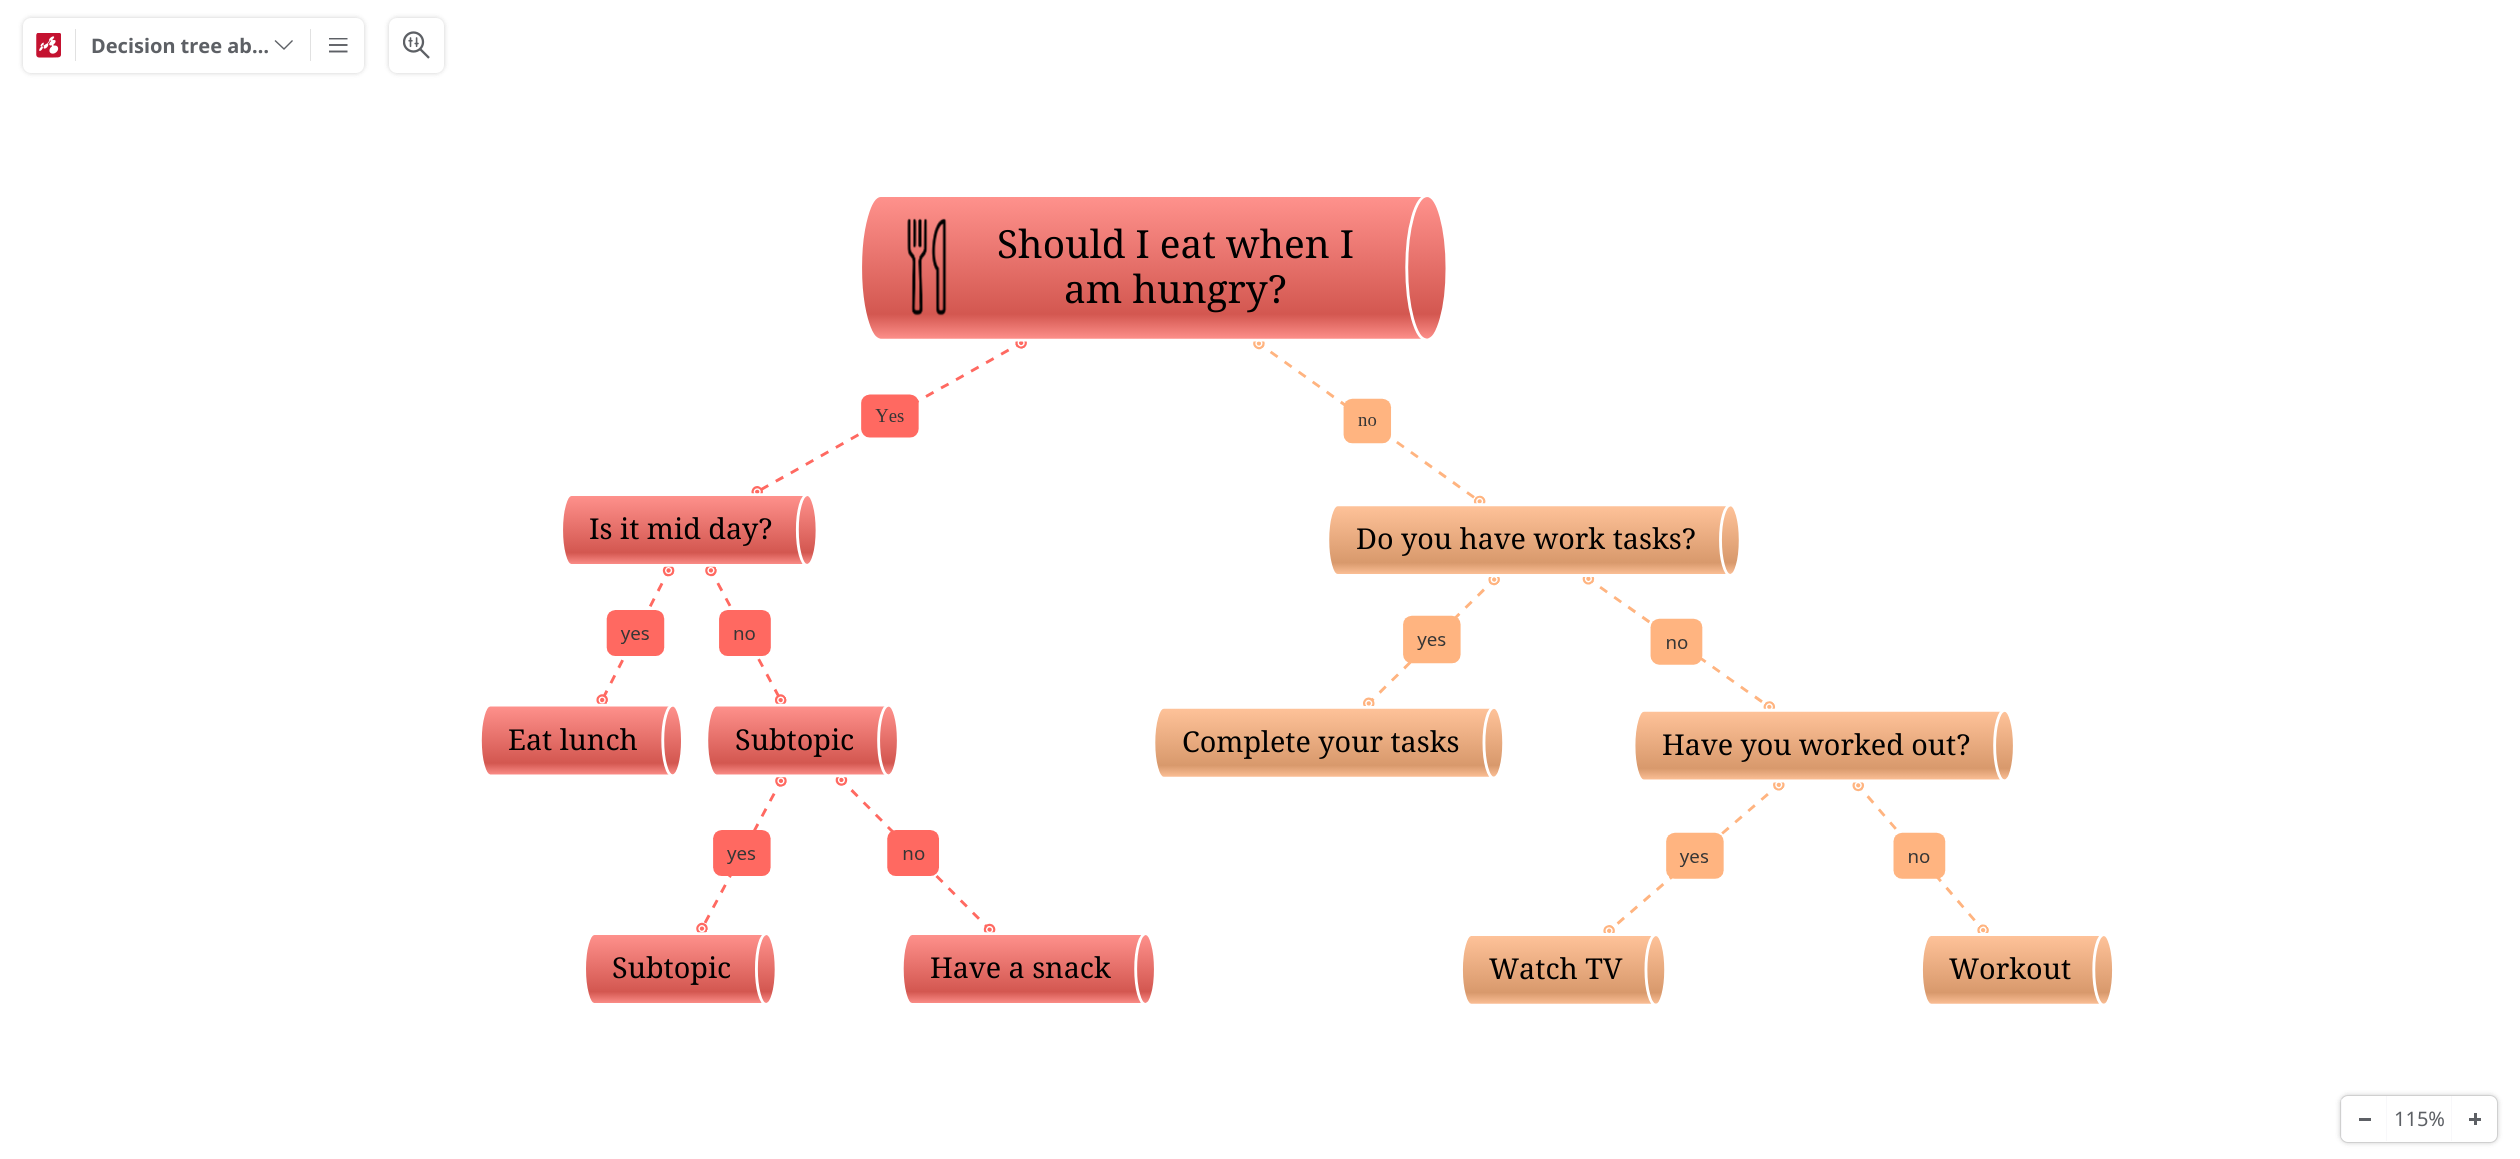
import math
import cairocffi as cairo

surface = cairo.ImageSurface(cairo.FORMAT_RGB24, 2520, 1159)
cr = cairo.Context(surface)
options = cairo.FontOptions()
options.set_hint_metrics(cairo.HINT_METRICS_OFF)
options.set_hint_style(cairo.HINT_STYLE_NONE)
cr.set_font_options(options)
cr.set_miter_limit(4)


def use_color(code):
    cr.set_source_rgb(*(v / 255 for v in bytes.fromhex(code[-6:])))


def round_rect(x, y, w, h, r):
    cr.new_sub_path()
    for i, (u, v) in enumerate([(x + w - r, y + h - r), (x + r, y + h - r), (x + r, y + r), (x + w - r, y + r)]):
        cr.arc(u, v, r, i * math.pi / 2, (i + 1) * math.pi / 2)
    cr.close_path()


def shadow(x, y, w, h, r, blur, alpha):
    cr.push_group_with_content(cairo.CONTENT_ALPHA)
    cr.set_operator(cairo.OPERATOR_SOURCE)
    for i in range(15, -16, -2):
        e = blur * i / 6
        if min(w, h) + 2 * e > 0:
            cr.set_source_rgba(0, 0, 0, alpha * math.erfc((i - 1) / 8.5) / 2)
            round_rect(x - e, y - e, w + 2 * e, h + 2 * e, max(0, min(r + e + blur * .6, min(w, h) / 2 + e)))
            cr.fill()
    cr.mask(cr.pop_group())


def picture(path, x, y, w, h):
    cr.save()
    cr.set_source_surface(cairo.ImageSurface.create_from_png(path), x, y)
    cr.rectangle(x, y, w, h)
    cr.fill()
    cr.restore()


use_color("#ffffff")
cr.paint()
use_color("#000000")
shadow(23, 18, 341, 55, 8, 3, 0.1)
shadow(23, 18, 341, 55, 8, 2, 0.1)
use_color("#ffffff")
round_rect(23, 18, 341, 55, 8)
cr.fill()
picture("img1.png", 36, 33, 25, 25)
use_color("#e1e1e1")
cr.rectangle(75, 29, 1, 32)
cr.fill()
cr.select_font_face("Noto Sans", cairo.FONT_SLANT_NORMAL, cairo.FONT_WEIGHT_BOLD)
cr.set_font_size(20)
use_color("#5d6065")
cr.move_to(91, 53)
cr.show_text("Decision tree ab…")
cr.new_path()
cr.move_to(292.5, 40.5)
cr.line_to(284, 49)
cr.line_to(275, 40.5)
cr.set_line_width(1.4)
cr.stroke()
use_color("#e1e1e1")
cr.rectangle(310, 29, 1, 32)
cr.fill()
cr.save()
cr.rectangle(329, 38, 19, 15)
cr.clip()
cr.new_path()
cr.move_to(329, 38.5)
cr.line_to(347.5, 38.5)
cr.move_to(329, 45)
cr.line_to(347.5, 45)
cr.move_to(329, 51.5)
cr.line_to(347.5, 51.5)
use_color("#5d6065")
cr.set_line_width(1.9)
cr.stroke()
cr.restore()
use_color("#000000")
shadow(389, 18, 55, 55, 8, 3, 0.1)
shadow(389, 18, 55, 55, 8, 2, 0.1)
use_color("#ffffff")
round_rect(389, 18, 55, 55, 8)
cr.fill()
picture("img2.png", 403, 31, 27, 28)
picture("img3.png", 481, 197, 1632, 807)
picture("img4.png", 907, 218, 40, 98)
cr.select_font_face("Droid Serif")
cr.set_font_size(38.75)
use_color("#000000")
cr.move_to(997, 258)
cr.show_text("Should I eat when I")
cr.move_to(1064, 303)
cr.show_text("am hungry?")
cr.set_font_size(28.75)
cr.move_to(589, 539)
cr.show_text("Is it mid day?")
cr.move_to(1356, 549)
cr.show_text("Do you have work tasks?")
cr.move_to(508, 750)
cr.show_text("Eat lunch")
cr.move_to(735, 750)
cr.show_text("Subtopic")
cr.move_to(1182, 752)
cr.show_text("Complete your tasks")
cr.move_to(1662, 755)
cr.show_text("Have you worked out?")
cr.move_to(612, 978)
cr.show_text("Subtopic")
cr.move_to(930, 978)
cr.show_text("Have a snack")
cr.move_to(1489, 979)
cr.show_text("Watch TV")
cr.move_to(1949, 979)
cr.show_text("Workout")
use_color("#000000")
shadow(2340, 1095, 158, 48, 8, 3, 0.1)
shadow(2340, 1095, 158, 48, 8, 2, 0.1)
use_color("#ffffff")
round_rect(2340.5, 1095.5, 157, 47, 7.5)
cr.fill_preserve()
use_color("#d0d0d0")
cr.set_line_width(1)
cr.stroke()
cr.save()
round_rect(2341, 1096, 155, 45, 6)
cr.clip()
use_color("#f8f8fa")
cr.rectangle(2341, 1096, 1, 45)
cr.fill()
cr.restore()
use_color("#5d6065")
cr.rectangle(2359, 1118, 12, 3)
cr.fill()
use_color("#f8f8fa")
cr.rectangle(2386, 1096, 1, 45)
cr.fill()
cr.select_font_face("Noto Sans")
cr.set_font_size(20)
use_color("#5d6065")
cr.move_to(2394, 1126)
cr.show_text("115%")
use_color("#f8f8fa")
cr.rectangle(2451, 1096, 1, 45)
cr.fill()
use_color("#5d6065")
cr.rectangle(2469, 1118, 12, 3)
cr.fill()
cr.rectangle(2474, 1113, 3, 12)
cr.fill()
surface.write_to_png("result.png")
